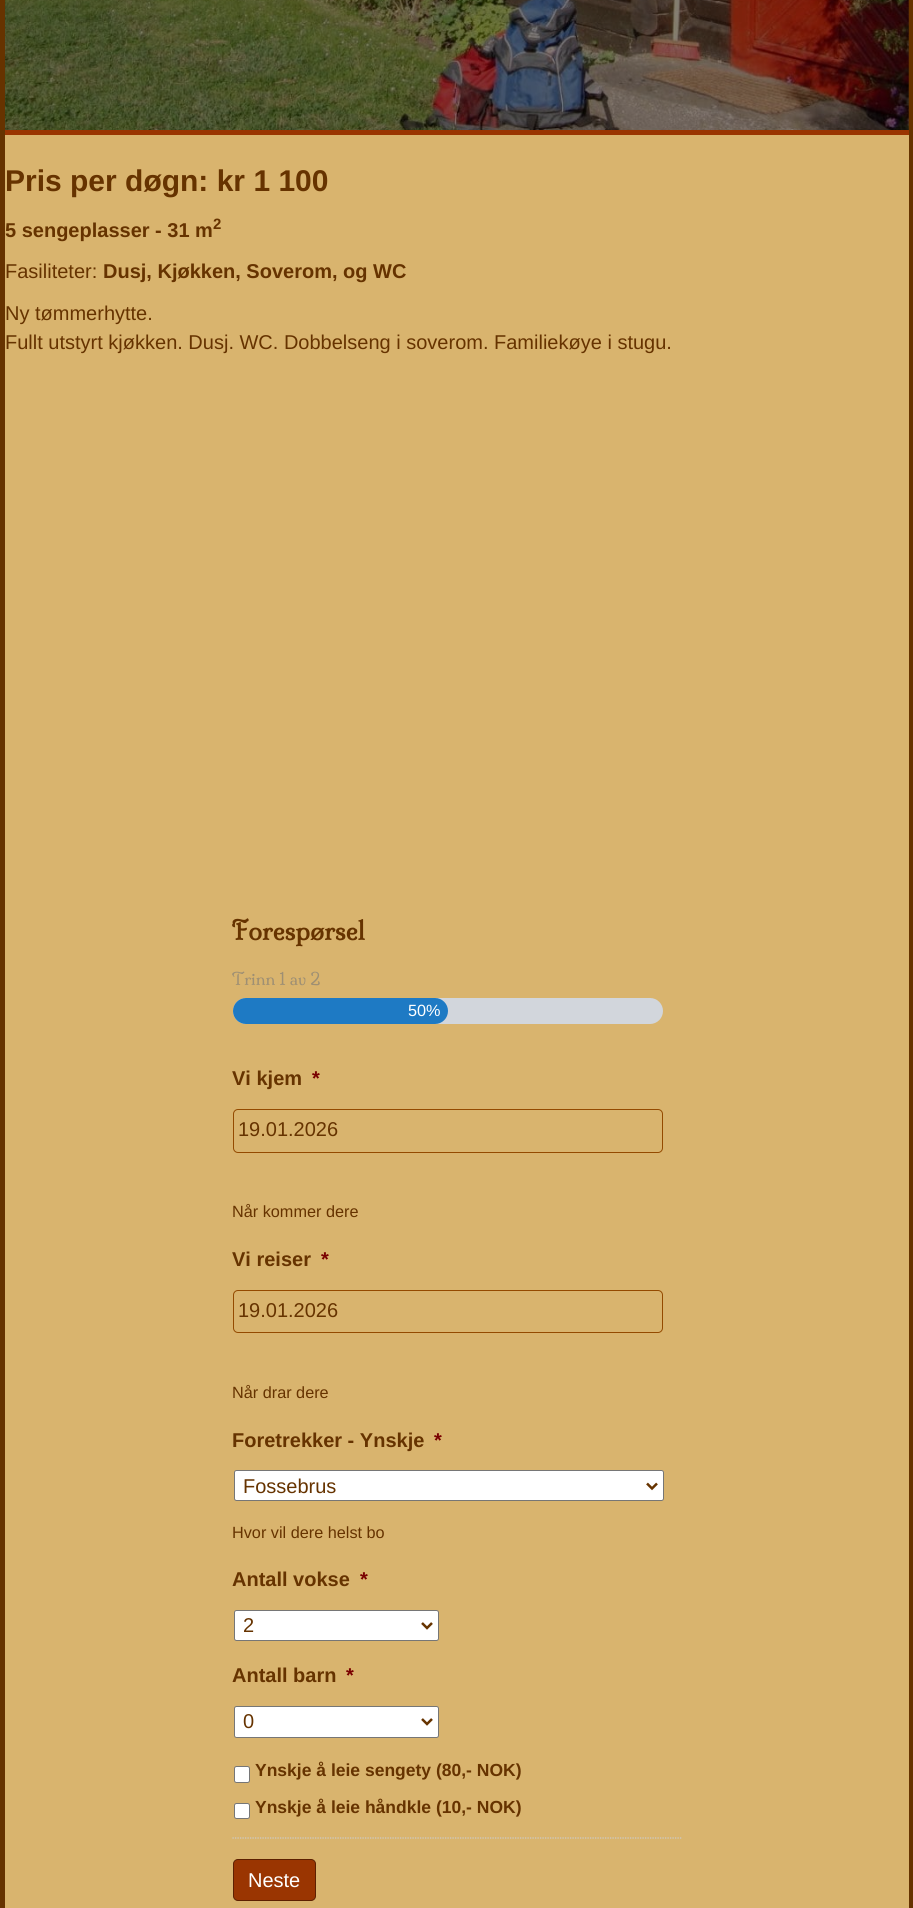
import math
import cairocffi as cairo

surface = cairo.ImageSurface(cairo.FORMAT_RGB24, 913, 1908)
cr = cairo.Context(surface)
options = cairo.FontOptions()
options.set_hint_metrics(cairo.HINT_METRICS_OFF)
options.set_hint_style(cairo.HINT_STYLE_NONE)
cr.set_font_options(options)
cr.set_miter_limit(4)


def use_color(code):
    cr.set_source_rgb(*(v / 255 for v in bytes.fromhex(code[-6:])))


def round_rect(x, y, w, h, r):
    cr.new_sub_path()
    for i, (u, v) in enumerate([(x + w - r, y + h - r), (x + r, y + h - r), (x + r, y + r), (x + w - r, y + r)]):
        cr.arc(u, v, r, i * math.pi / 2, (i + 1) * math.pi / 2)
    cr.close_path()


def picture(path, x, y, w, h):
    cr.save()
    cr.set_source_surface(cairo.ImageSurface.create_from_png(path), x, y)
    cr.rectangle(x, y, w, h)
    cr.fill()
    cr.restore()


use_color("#663300")
cr.paint()
picture("img1.png", 5, 0, 904, 130)
use_color("#9a3501")
cr.rectangle(5, 130, 904, 5)
cr.fill()
use_color("#d9b46e")
cr.rectangle(5, 135, 904, 1773)
cr.fill()
cr.select_font_face("Liberation Sans", cairo.FONT_SLANT_NORMAL, cairo.FONT_WEIGHT_BOLD)
cr.set_font_size(30)
use_color("#663300")
cr.move_to(5, 191)
cr.show_text("Pris per døgn: kr 1 100")
cr.set_font_size(20)
cr.move_to(5, 237)
cr.show_text("5 sengeplasser - 31 m")
cr.set_font_size(15)
cr.move_to(213, 229)
cr.show_text("2")
cr.select_font_face("Liberation Sans")
cr.set_font_size(20)
cr.move_to(5, 278)
cr.show_text("Fasiliteter:")
cr.select_font_face("Liberation Sans", cairo.FONT_SLANT_NORMAL, cairo.FONT_WEIGHT_BOLD)
cr.move_to(103, 278)
cr.show_text("Dusj, Kjøkken, Soverom, og WC")
cr.select_font_face("Liberation Sans")
cr.move_to(5, 320)
cr.show_text("Ny tømmerhytte.")
cr.move_to(5, 349)
cr.show_text("Fullt utstyrt kjøkken. Dusj. WC. Dobbelseng i soverom. Familiekøye i stugu.")
cr.select_font_face("Milonga", cairo.FONT_SLANT_NORMAL, cairo.FONT_WEIGHT_BOLD)
cr.set_font_size(25)
cr.move_to(232, 940)
cr.show_text("Forespørsel")
cr.select_font_face("Milonga")
cr.set_font_size(16.25)
use_color("#9e8f73")
cr.move_to(232, 985)
cr.show_text("Trinn 1 av 2")
use_color("#d2d6dc")
round_rect(233, 998, 430, 26, 13)
cr.fill()
use_color("#1e7ac4")
round_rect(233, 998, 215, 26, 13)
cr.fill()
cr.select_font_face("Liberation Sans")
use_color("#ffffff")
cr.move_to(408, 1016)
cr.show_text("50%")
cr.select_font_face("Liberation Sans", cairo.FONT_SLANT_NORMAL, cairo.FONT_WEIGHT_BOLD)
cr.set_font_size(20)
use_color("#663300")
cr.move_to(232, 1085)
cr.show_text("Vi kjem")
use_color("#790000")
cr.move_to(312, 1085)
cr.show_text("*")
round_rect(233.5, 1109.5, 429, 43, 4.5)
use_color("#944a00")
cr.set_line_width(1)
cr.stroke()
cr.select_font_face("Liberation Sans")
use_color("#663300")
cr.move_to(238, 1136)
cr.show_text("19.01.2026")
cr.set_font_size(16.25)
cr.move_to(232, 1217)
cr.show_text("Når kommer dere")
cr.select_font_face("Liberation Sans", cairo.FONT_SLANT_NORMAL, cairo.FONT_WEIGHT_BOLD)
cr.set_font_size(20)
cr.move_to(232, 1266)
cr.show_text("Vi reiser")
use_color("#790000")
cr.move_to(321, 1266)
cr.show_text("*")
round_rect(233.5, 1290.5, 429, 42, 4.5)
use_color("#944a00")
cr.stroke()
cr.select_font_face("Liberation Sans")
use_color("#663300")
cr.move_to(238, 1317)
cr.show_text("19.01.2026")
cr.set_font_size(16.25)
cr.move_to(232, 1398)
cr.show_text("Når drar dere")
cr.select_font_face("Liberation Sans", cairo.FONT_SLANT_NORMAL, cairo.FONT_WEIGHT_BOLD)
cr.set_font_size(20)
cr.move_to(232, 1447)
cr.show_text("Foretrekker - Ynskje")
use_color("#790000")
cr.move_to(434, 1447)
cr.show_text("*")
use_color("#ffffff")
round_rect(234.5, 1470.5, 429, 30, 2)
cr.fill_preserve()
use_color("#767676")
cr.stroke()
cr.new_path()
cr.move_to(647, 1483.5)
cr.line_to(652, 1488.5)
cr.line_to(657, 1483.5)
use_color("#663300")
cr.set_line_width(2.5)
cr.stroke()
cr.select_font_face("Liberation Sans")
cr.move_to(243, 1493)
cr.show_text("Fossebrus")
cr.set_font_size(16.25)
cr.move_to(232, 1538)
cr.show_text("Hvor vil dere helst bo")
cr.select_font_face("Liberation Sans", cairo.FONT_SLANT_NORMAL, cairo.FONT_WEIGHT_BOLD)
cr.set_font_size(20)
cr.move_to(232, 1586)
cr.show_text("Antall vokse")
use_color("#790000")
cr.move_to(360, 1586)
cr.show_text("*")
use_color("#ffffff")
round_rect(234.5, 1610.5, 204, 30, 2)
cr.fill_preserve()
use_color("#767676")
cr.set_line_width(1)
cr.stroke()
cr.new_path()
cr.move_to(422, 1623)
cr.line_to(427, 1628)
cr.line_to(432, 1623)
use_color("#663300")
cr.set_line_width(2.5)
cr.stroke()
cr.select_font_face("Liberation Sans")
cr.move_to(243, 1632)
cr.show_text("2")
cr.select_font_face("Liberation Sans", cairo.FONT_SLANT_NORMAL, cairo.FONT_WEIGHT_BOLD)
cr.move_to(232, 1682)
cr.show_text("Antall barn")
use_color("#790000")
cr.move_to(346, 1682)
cr.show_text("*")
use_color("#ffffff")
round_rect(234.5, 1706.5, 204, 31, 2)
cr.fill_preserve()
use_color("#767676")
cr.set_line_width(1)
cr.stroke()
cr.new_path()
cr.move_to(422, 1719)
cr.line_to(427, 1724)
cr.line_to(432, 1719)
use_color("#663300")
cr.set_line_width(2.5)
cr.stroke()
cr.select_font_face("Liberation Sans")
cr.move_to(243, 1728)
cr.show_text("0")
use_color("#ffffff")
round_rect(234.5, 1766.5, 15, 16, 2)
cr.fill_preserve()
use_color("#767676")
cr.set_line_width(1)
cr.stroke()
cr.select_font_face("Liberation Sans", cairo.FONT_SLANT_NORMAL, cairo.FONT_WEIGHT_BOLD)
cr.set_font_size(17.5)
use_color("#663300")
cr.move_to(255, 1776)
cr.show_text("Ynskje å leie sengety (80,- NOK)")
use_color("#ffffff")
round_rect(234.5, 1803.5, 15, 15, 2)
cr.fill_preserve()
use_color("#767676")
cr.stroke()
use_color("#663300")
cr.move_to(255, 1813)
cr.show_text("Ynskje å leie håndkle (10,- NOK)")
cr.new_path()
cr.move_to(232.5, 1838)
cr.line_to(682.5, 1838)
use_color("#cccccc")
cr.set_line_width(1.2)
cr.set_dash([1.25, 1.25])
cr.stroke()
use_color("#9a3501")
round_rect(233.5, 1859.5, 82, 41, 4.5)
cr.fill_preserve()
use_color("#5d2001")
cr.set_line_width(1)
cr.set_dash([])
cr.stroke()
cr.select_font_face("Liberation Sans")
cr.set_font_size(20)
use_color("#ffffff")
cr.move_to(248, 1887)
cr.show_text("Neste")
surface.write_to_png("result.png")
